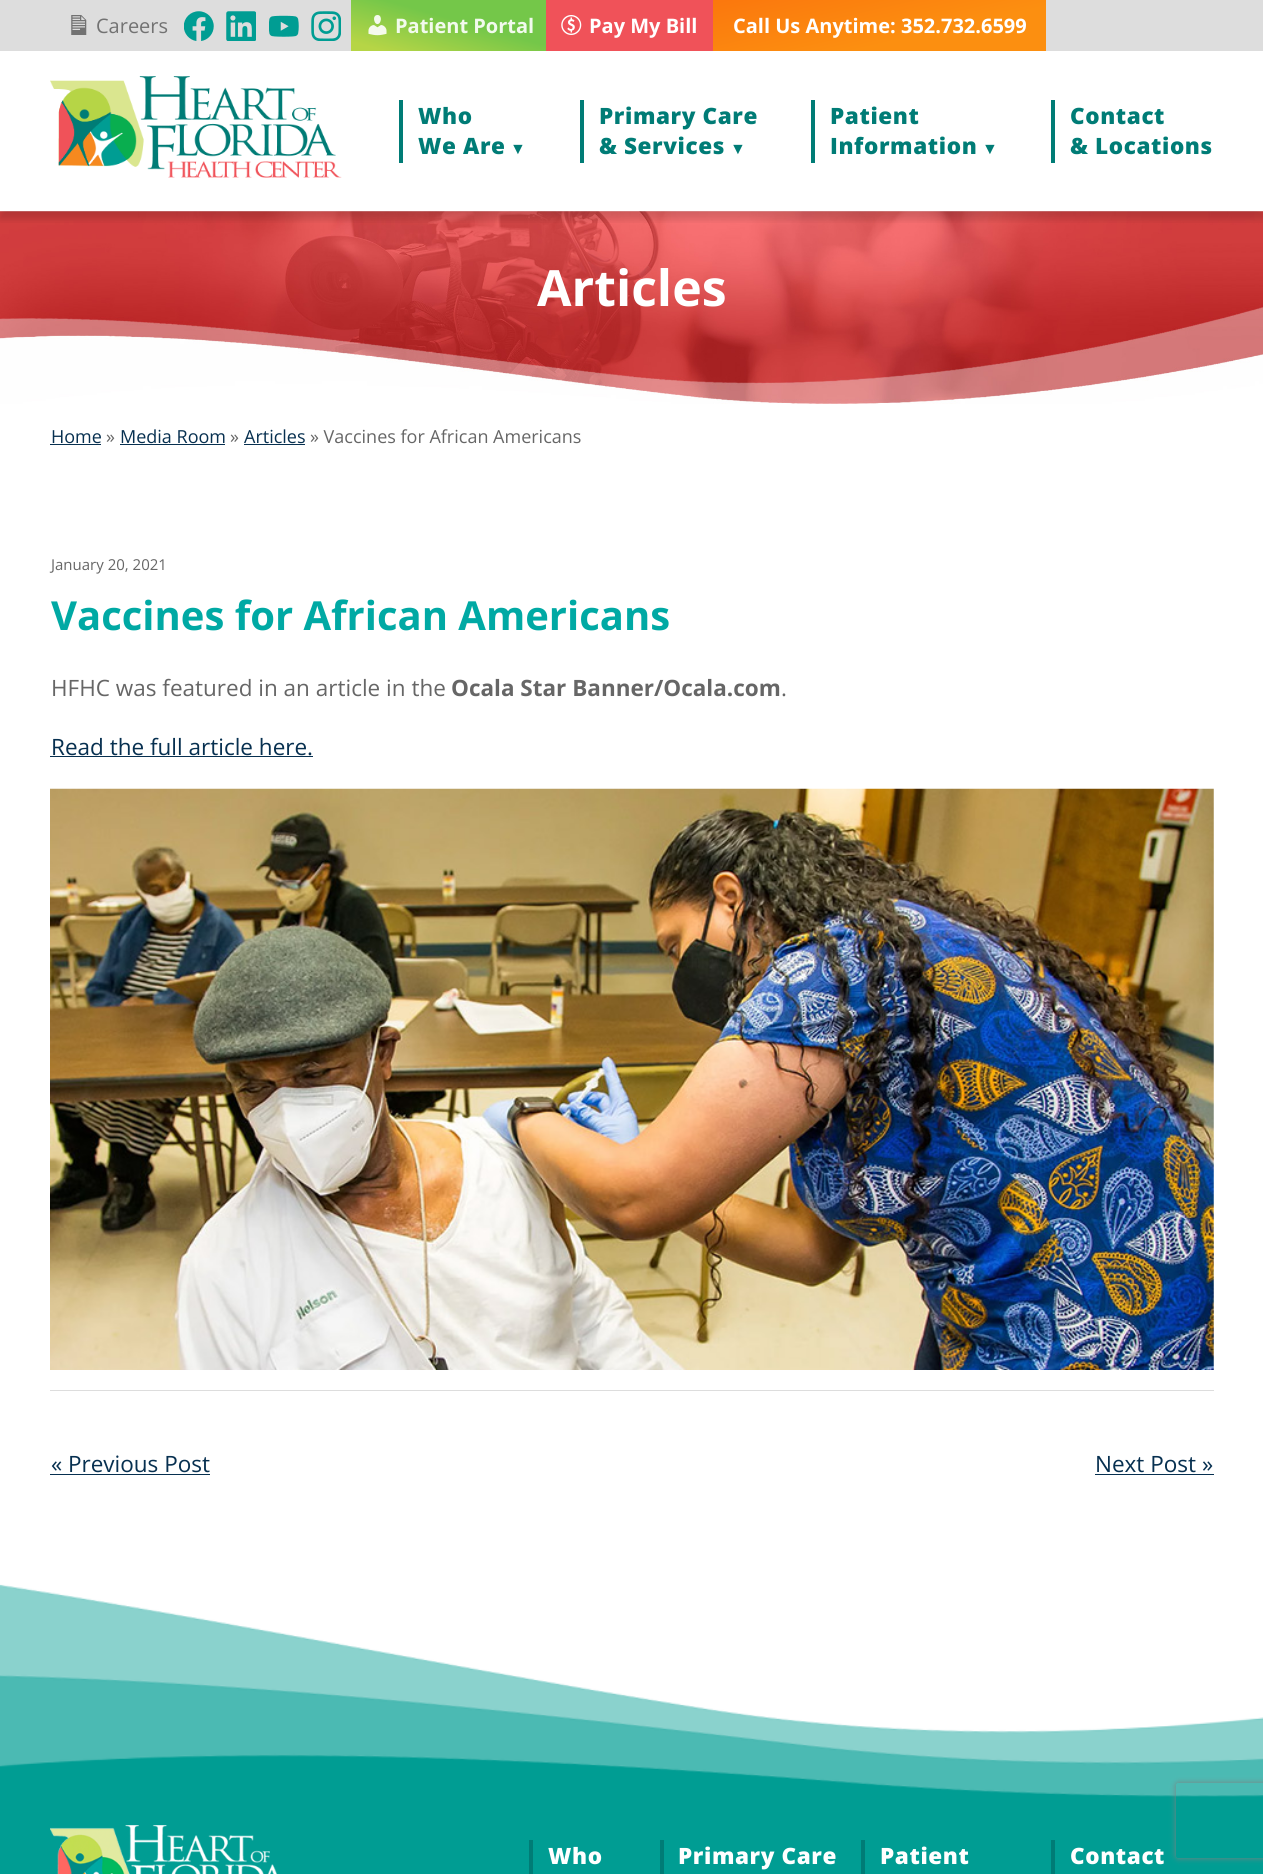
import math
import cairocffi as cairo

surface = cairo.ImageSurface(cairo.FORMAT_RGB24, 1263, 1874)
cr = cairo.Context(surface)
options = cairo.FontOptions()
options.set_hint_metrics(cairo.HINT_METRICS_OFF)
options.set_hint_style(cairo.HINT_STYLE_NONE)
cr.set_font_options(options)
cr.set_miter_limit(4)


def use_color(code):
    cr.set_source_rgb(*(v / 255 for v in bytes.fromhex(code[-6:])))


def spaced_text(x, y, s, letter, word):
    cr.move_to(x, y)
    for ch in s:
        cr.show_text(ch)
        cr.rel_move_to(letter + word * (ch == ' '), 0)


def round_rect(x, y, w, h, r):
    cr.new_sub_path()
    for i, (u, v) in enumerate([(x + w - r, y + h - r), (x + r, y + h - r), (x + r, y + r), (x + w - r, y + r)]):
        cr.arc(u, v, r, i * math.pi / 2, (i + 1) * math.pi / 2)
    cr.close_path()


def shadow(x, y, w, h, r, blur, alpha):
    cr.push_group_with_content(cairo.CONTENT_ALPHA)
    cr.set_operator(cairo.OPERATOR_SOURCE)
    for i in range(15, -16, -2):
        e = blur * i / 6
        if min(w, h) + 2 * e > 0:
            cr.set_source_rgba(0, 0, 0, alpha * math.erfc((i - 1) / 8.5) / 2)
            round_rect(x - e, y - e, w + 2 * e, h + 2 * e, max(0, min(r + e + blur * .6, min(w, h) / 2 + e)))
            cr.fill()
    cr.mask(cr.pop_group())


def picture(path, x, y, w, h):
    cr.save()
    cr.set_source_surface(cairo.ImageSurface.create_from_png(path), x, y)
    cr.rectangle(x, y, w, h)
    cr.fill()
    cr.restore()


use_color("#ffffff")
cr.paint()
use_color("#dddddd")
cr.rectangle(0, 0, 1263, 51)
cr.fill()
picture("img1.png", 71, 15, 16, 20)
cr.select_font_face("Open Sans")
cr.set_font_size(20)
use_color("#727272")
cr.move_to(96, 33)
cr.show_text("Careers")
picture("img2.png", 184, 11, 30, 30)
picture("img3.png", 226, 11, 30, 30)
picture("img4.png", 269, 15, 30, 22)
picture("img5.png", 311, 11, 30, 30)
gradient = cairo.LinearGradient(463, -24, 435, 75)
gradient.add_color_stop_rgba(0.43, 0.455, 0.78, 0.286, 1)
gradient.add_color_stop_rgba(0.91, 0.714, 0.835, 0.275, 1)
cr.set_source(gradient)
cr.rectangle(351, 0, 195, 51)
cr.fill()
picture("img6.png", 368, 15, 19, 21)
cr.select_font_face("Open Sans", cairo.FONT_SLANT_NORMAL, cairo.FONT_WEIGHT_BOLD)
use_color("#f2faed")
cr.move_to(395, 33)
cr.show_text("Patient Portal")
use_color("#f05259")
cr.rectangle(546, 0, 167, 51)
cr.fill()
picture("img7.png", 561, 15, 21, 20)
use_color("#ffffff")
cr.move_to(589, 33)
cr.show_text("Pay My Bill")
gradient = cairo.LinearGradient(893, 87, 865, -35)
gradient.add_color_stop_rgba(0.35, 0.988, 0.561, 0.063, 1)
gradient.add_color_stop_rgba(1, 0.984, 0.467, 0.051, 1)
cr.set_source(gradient)
cr.rectangle(713, 0, 333, 51)
cr.fill()
use_color("#ffffff")
cr.move_to(733, 33)
cr.show_text("Call Us Anytime: 352.732.6599")
picture("img9.png", 0, 211, 1263, 193)
cr.save()
cr.rectangle(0, 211, 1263, 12)
cr.clip()
use_color("#000000")
shadow(0, 59, 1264, 160, 0, 4, 0.15)
cr.restore()
picture("img8.png", 50, 76, 292, 102)
use_color("#007c76")
cr.rectangle(399, 100, 4, 63)
cr.fill()
cr.select_font_face("Open Sans ExtraBold")
cr.set_font_size(22.5)
spaced_text(418, 124, "Who", 0.6, 0)
spaced_text(418, 154, "We Are", 0.6, 0)
cr.select_font_face("Liberation Serif", cairo.FONT_SLANT_NORMAL, cairo.FONT_WEIGHT_BOLD)
cr.set_font_size(16)
spaced_text(510, 154, "▼", 0.6, 0)
cr.rectangle(580, 100, 4, 63)
cr.fill()
cr.select_font_face("Open Sans ExtraBold")
cr.set_font_size(22.5)
spaced_text(599, 124, "Primary Care", 0.6, 0)
spaced_text(599, 154, "& Services", 0.6, 0)
cr.select_font_face("Liberation Serif", cairo.FONT_SLANT_NORMAL, cairo.FONT_WEIGHT_BOLD)
cr.set_font_size(16)
spaced_text(730, 154, "▼", 0.6, 0)
cr.rectangle(811, 100, 4, 63)
cr.fill()
cr.select_font_face("Open Sans ExtraBold")
cr.set_font_size(22.5)
spaced_text(830, 124, "Patient", 0.6, 0)
spaced_text(830, 154, "Information", 0.6, 0)
cr.select_font_face("Liberation Serif", cairo.FONT_SLANT_NORMAL, cairo.FONT_WEIGHT_BOLD)
cr.set_font_size(16)
spaced_text(982, 154, "▼", 0.6, 0)
cr.rectangle(1051, 100, 4, 63)
cr.fill()
cr.select_font_face("Open Sans ExtraBold")
cr.set_font_size(22.5)
spaced_text(1070, 124, "Contact", 0.6, 0)
spaced_text(1070, 154, "& Locations", 0.6, 0)
cr.select_font_face("Open Sans", cairo.FONT_SLANT_NORMAL, cairo.FONT_WEIGHT_BOLD)
cr.set_font_size(50)
use_color("#ffffff")
cr.move_to(537, 306)
cr.show_text("Articles")
cr.select_font_face("Open Sans")
cr.set_font_size(18)
use_color("#073050")
cr.move_to(51, 443)
cr.show_text("Home")
cr.rectangle(50, 444, 51, 1)
cr.fill()
use_color("#666666")
cr.move_to(106, 443)
cr.show_text("»")
use_color("#073050")
cr.move_to(120, 443)
cr.show_text("Media Room")
cr.rectangle(120, 444, 105, 1)
cr.fill()
use_color("#666666")
cr.move_to(230, 443)
cr.show_text("»")
use_color("#073050")
cr.move_to(244, 443)
cr.show_text("Articles")
cr.rectangle(244, 444, 61, 1)
cr.fill()
use_color("#666666")
cr.move_to(310, 443)
cr.show_text("» Vaccines for African Americans")
cr.set_font_size(15)
cr.move_to(51, 570)
cr.show_text("January 20, 2021")
cr.select_font_face("Open Sans", cairo.FONT_SLANT_NORMAL, cairo.FONT_WEIGHT_BOLD)
cr.set_font_size(40)
use_color("#00a9a4")
cr.move_to(51, 630)
cr.show_text("Vaccines for African Americans")
cr.select_font_face("Open Sans")
cr.set_font_size(22.5)
use_color("#666666")
cr.move_to(51, 696)
cr.show_text("HFHC was featured in an article in the")
cr.select_font_face("Open Sans", cairo.FONT_SLANT_NORMAL, cairo.FONT_WEIGHT_BOLD)
cr.move_to(451, 696)
cr.show_text("Ocala Star Banner/Ocala.com")
cr.select_font_face("Open Sans")
cr.move_to(781, 696)
cr.show_text(".")
use_color("#073050")
cr.move_to(51, 755)
cr.show_text("Read the full article here.")
cr.rectangle(50, 756, 263, 1)
cr.fill()
picture("img10.png", 50, 788, 1164, 582)
use_color("#dddddd")
cr.rectangle(50, 1390, 1164, 1)
cr.fill()
use_color("#073050")
cr.move_to(51, 1472)
cr.show_text("« Previous Post")
cr.rectangle(50, 1474, 160, 1)
cr.fill()
cr.move_to(1095, 1472)
cr.show_text("Next Post »")
cr.rectangle(1095, 1474, 119, 1)
cr.fill()
use_color("#009d93")
cr.rectangle(0, 1797, 1263, 77)
cr.fill()
picture("img11.png", 0, 1525, 1263, 272)
picture("img12.png", 50, 1825, 227, 49)
use_color("#007c76")
cr.rectangle(529, 1840, 4, 34)
cr.fill()
cr.select_font_face("Open Sans ExtraBold")
use_color("#ffffff")
spaced_text(548, 1864, "Who", 0.6, 0)
use_color("#007c76")
cr.rectangle(660, 1840, 4, 34)
cr.fill()
use_color("#ffffff")
spaced_text(678, 1864, "Primary Care", 0.6, 0)
use_color("#007c76")
cr.rectangle(861, 1840, 4, 34)
cr.fill()
use_color("#ffffff")
spaced_text(880, 1864, "Patient", 0.6, 0)
use_color("#007c76")
cr.rectangle(1051, 1840, 4, 34)
cr.fill()
use_color("#ffffff")
spaced_text(1070, 1864, "Contact", 0.6, 0)
cr.save()
cr.set_fill_rule(cairo.FILL_RULE_EVEN_ODD)
cr.new_path()
cr.move_to(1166, 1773)
cr.line_to(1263, 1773)
cr.line_to(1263, 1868)
cr.line_to(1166, 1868)
cr.close_path()
cr.move_to(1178.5, 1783)
cr.line_to(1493.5, 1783)
cr.curve_to(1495, 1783, 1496, 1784, 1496, 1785.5)
cr.line_to(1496, 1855.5)
cr.curve_to(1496, 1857, 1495, 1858, 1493.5, 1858)
cr.line_to(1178.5, 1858)
cr.curve_to(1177, 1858, 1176, 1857, 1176, 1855.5)
cr.line_to(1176, 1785.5)
cr.curve_to(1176, 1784, 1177, 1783, 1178.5, 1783)
cr.close_path()
cr.clip()
use_color("#808080")
shadow(1176, 1783, 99, 75, 2.5, 3, 1)
cr.restore()
surface.write_to_png("result.png")
